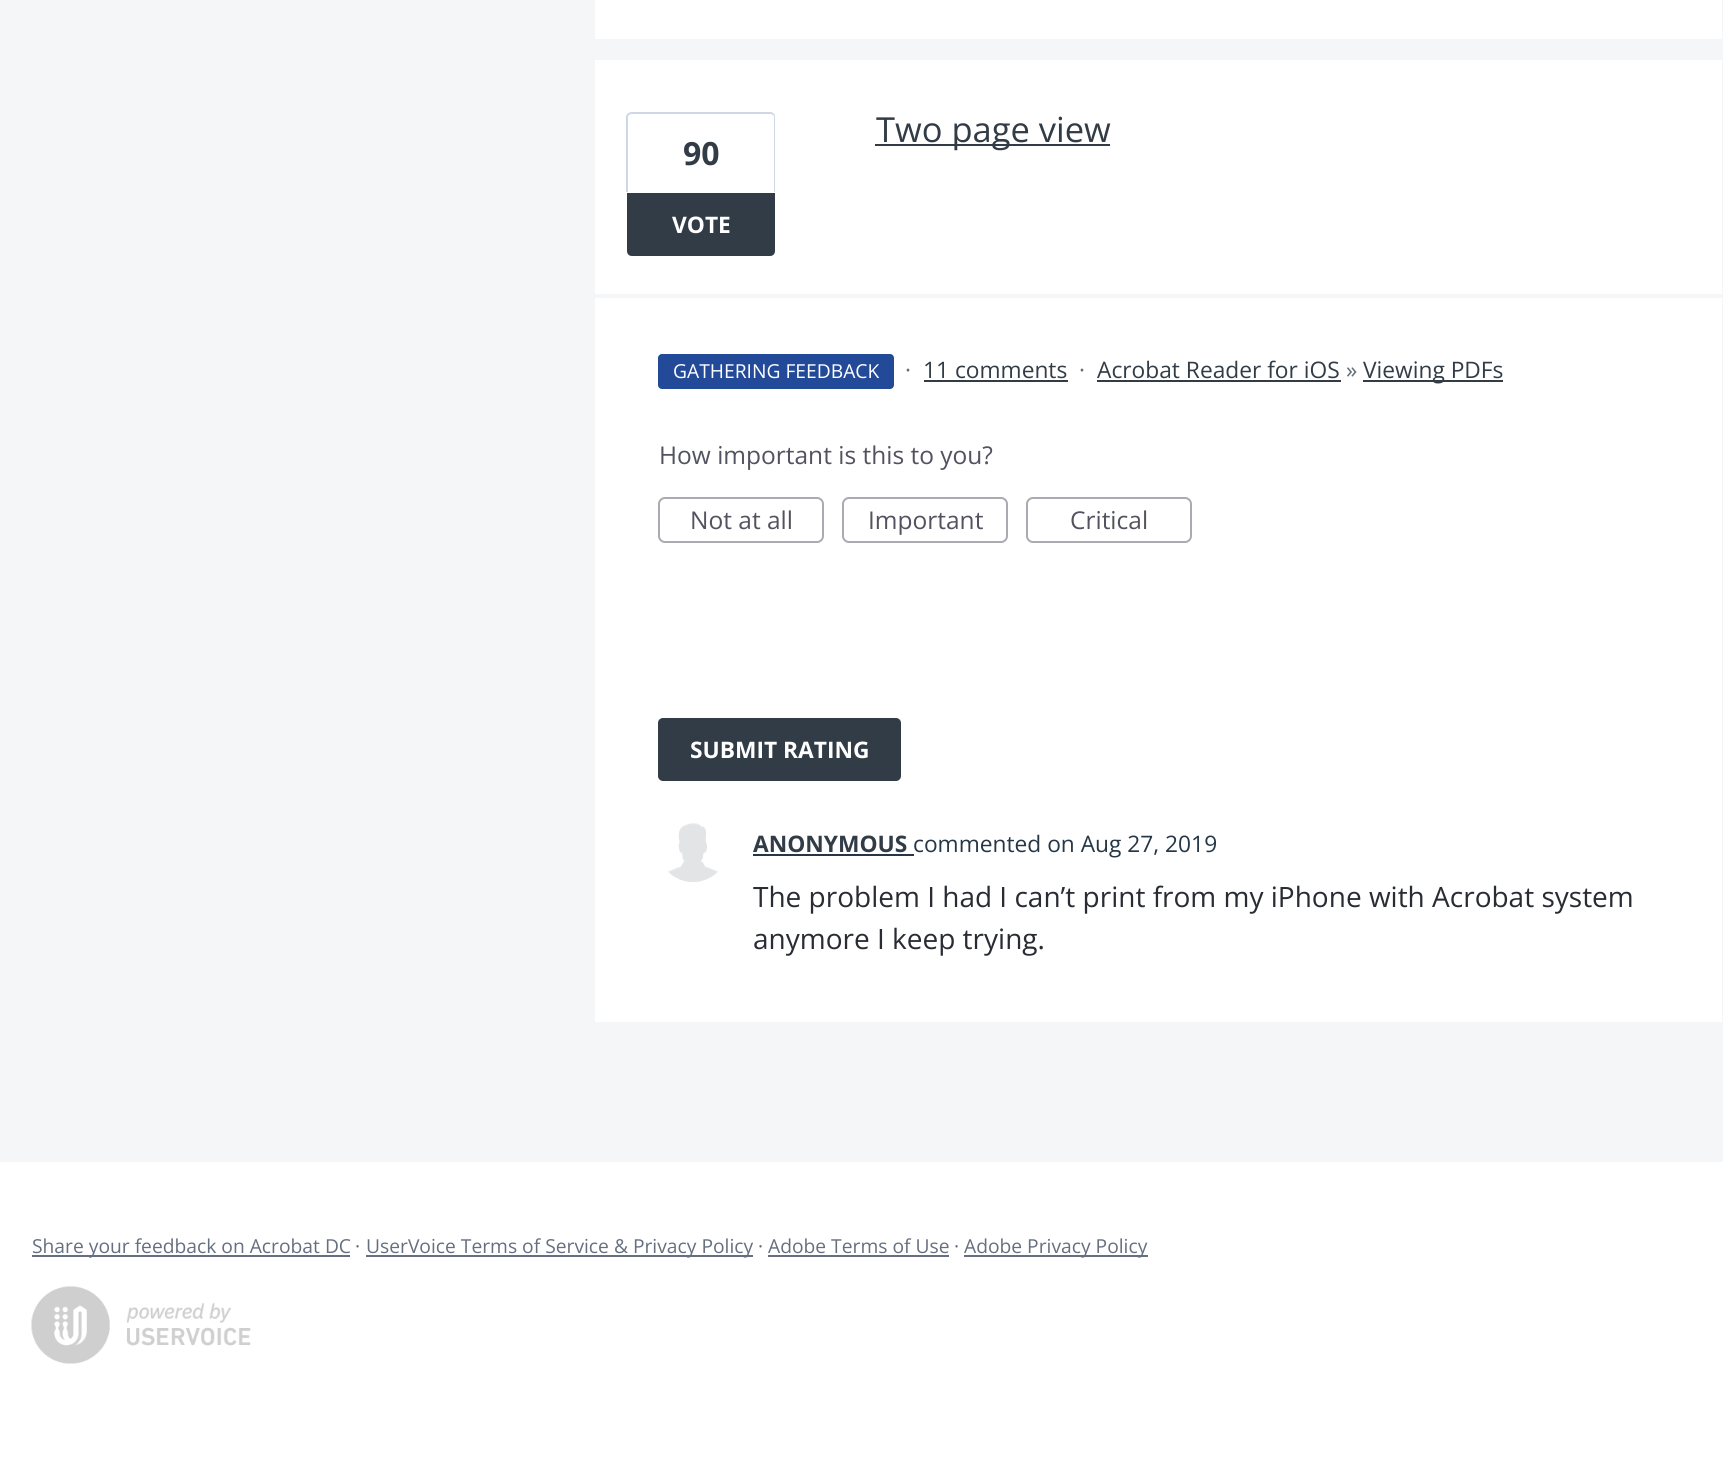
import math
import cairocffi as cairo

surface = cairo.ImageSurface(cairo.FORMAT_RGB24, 1723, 1461)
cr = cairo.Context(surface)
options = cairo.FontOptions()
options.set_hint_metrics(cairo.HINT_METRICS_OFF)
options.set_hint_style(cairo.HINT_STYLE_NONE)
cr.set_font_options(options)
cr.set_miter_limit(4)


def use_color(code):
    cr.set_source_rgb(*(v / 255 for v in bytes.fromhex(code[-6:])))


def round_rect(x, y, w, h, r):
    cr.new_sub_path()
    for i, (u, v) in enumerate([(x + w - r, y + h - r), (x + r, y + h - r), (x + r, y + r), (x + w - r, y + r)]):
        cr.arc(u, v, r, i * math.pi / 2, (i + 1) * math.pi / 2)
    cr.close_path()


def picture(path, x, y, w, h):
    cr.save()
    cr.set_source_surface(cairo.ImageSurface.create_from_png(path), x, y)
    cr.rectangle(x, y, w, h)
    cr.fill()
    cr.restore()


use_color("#ffffff")
cr.paint()
use_color("#f5f6f7")
cr.rectangle(0, 0, 1723, 1162)
cr.fill()
use_color("#ffffff")
cr.rectangle(595, 0, 1127, 39)
cr.fill()
cr.rectangle(595, 60, 1127, 962)
cr.fill()
use_color("#323c46")
cr.rectangle(875, 144, 235, 2)
cr.fill()
cr.select_font_face("Open Sans")
cr.set_font_size(34.5)
cr.move_to(876, 142)
cr.show_text("Two page view")
use_color("#cfd7e6")
cr.set_fill_rule(cairo.FILL_RULE_EVEN_ODD)
cr.new_path()
cr.move_to(632, 112)
cr.line_to(770, 112)
cr.curve_to(773, 112, 775, 114, 775, 117)
cr.line_to(775, 192)
cr.line_to(626, 192)
cr.line_to(626, 117)
cr.curve_to(626, 114, 629, 112, 632, 112)
cr.close_path()
cr.move_to(632, 114)
cr.line_to(770, 114)
cr.curve_to(772, 114, 774, 115, 774, 117)
cr.line_to(774, 192)
cr.line_to(628, 192)
cr.line_to(628, 117)
cr.curve_to(628, 115, 630, 114, 632, 114)
cr.close_path()
cr.fill()
cr.select_font_face("Open Sans", cairo.FONT_SLANT_NORMAL, cairo.FONT_WEIGHT_BOLD)
cr.set_font_size(32)
use_color("#323c46")
cr.move_to(683, 165)
cr.show_text("90")
cr.new_path()
cr.move_to(627, 193)
cr.line_to(775, 193)
cr.line_to(775, 251)
cr.curve_to(775, 254, 773, 256, 770, 256)
cr.line_to(632, 256)
cr.curve_to(629, 256, 627, 254, 627, 251)
cr.close_path()
cr.fill()
cr.set_font_size(22.75)
use_color("#ffffff")
cr.move_to(672, 233)
cr.show_text("VOTE")
use_color("#f5f6f7")
cr.rectangle(595, 294, 1127, 4)
cr.fill()
use_color("#234a99")
round_rect(658, 354, 236, 35, 4)
cr.fill()
cr.select_font_face("Open Sans")
cr.set_font_size(19.25)
use_color("#ffffff")
cr.move_to(673, 378)
cr.show_text("GATHERING FEEDBACK")
cr.set_font_size(22.75)
use_color("#646b72")
cr.move_to(905, 378)
cr.show_text("·")
use_color("#323c46")
cr.move_to(923, 378)
cr.show_text("11 comments")
cr.rectangle(924, 380, 144, 2)
cr.fill()
use_color("#646b72")
cr.move_to(1079, 378)
cr.show_text("·")
use_color("#323c46")
cr.move_to(1097, 378)
cr.show_text("Acrobat Reader for iOS")
cr.rectangle(1097, 380, 244, 2)
cr.fill()
use_color("#646b72")
cr.move_to(1346, 378)
cr.show_text("»")
use_color("#323c46")
cr.rectangle(1363, 380, 140, 2)
cr.fill()
cr.move_to(1363, 378)
cr.show_text("Viewing PDFs")
cr.set_font_size(24.5)
use_color("#525260")
cr.move_to(659, 464)
cr.show_text("How important is this to you?")
round_rect(659, 498, 164, 44, 6)
use_color("#aaaab2")
cr.stroke()
use_color("#525260")
cr.move_to(690, 529)
cr.show_text("Not at all")
round_rect(843, 498, 164, 44, 6)
use_color("#aaaab2")
cr.stroke()
use_color("#525260")
cr.move_to(868, 529)
cr.show_text("Important")
round_rect(1027, 498, 164, 44, 6)
use_color("#aaaab2")
cr.stroke()
use_color("#525260")
cr.move_to(1070, 529)
cr.show_text("Critical")
use_color("#323c46")
round_rect(658, 718, 243, 63, 5)
cr.fill()
cr.select_font_face("Open Sans", cairo.FONT_SLANT_NORMAL, cairo.FONT_WEIGHT_BOLD)
cr.set_font_size(22.75)
use_color("#ffffff")
cr.move_to(690, 758)
cr.show_text("SUBMIT RATING")
picture("img1.png", 668, 823, 50, 59)
use_color("#323c46")
cr.move_to(753, 852)
cr.show_text("ANONYMOUS")
use_color("#253746")
cr.rectangle(753, 854, 161, 2)
cr.fill()
cr.select_font_face("Open Sans")
cr.move_to(913, 852)
cr.show_text("commented on Aug 27, 2019")
cr.set_font_size(28)
use_color("#292c33")
cr.move_to(753, 907)
cr.show_text("The problem I had I can’t print from my iPhone with Acrobat system")
cr.move_to(753, 949)
cr.show_text("anymore I keep trying.")
use_color("#666f80")
cr.rectangle(32, 1255, 318, 2)
cr.fill()
cr.set_font_size(19.25)
cr.move_to(32, 1253)
cr.show_text("Share your feedback on Acrobat DC")
use_color("#646b72")
cr.move_to(355, 1253)
cr.show_text("·")
use_color("#666f80")
cr.rectangle(366, 1255, 387, 2)
cr.fill()
cr.move_to(366, 1253)
cr.show_text("UserVoice Terms of Service & Privacy Policy")
use_color("#646b72")
cr.move_to(758, 1253)
cr.show_text("·")
use_color("#666f80")
cr.move_to(768, 1253)
cr.show_text("Adobe Terms of Use")
cr.rectangle(768, 1255, 181, 2)
cr.fill()
use_color("#646b72")
cr.move_to(954, 1253)
cr.show_text("·")
use_color("#666f80")
cr.rectangle(964, 1255, 184, 2)
cr.fill()
cr.move_to(964, 1253)
cr.show_text("Adobe Privacy Policy")
picture("img2.png", 31, 1286, 220, 78)
surface.write_to_png("result.png")
